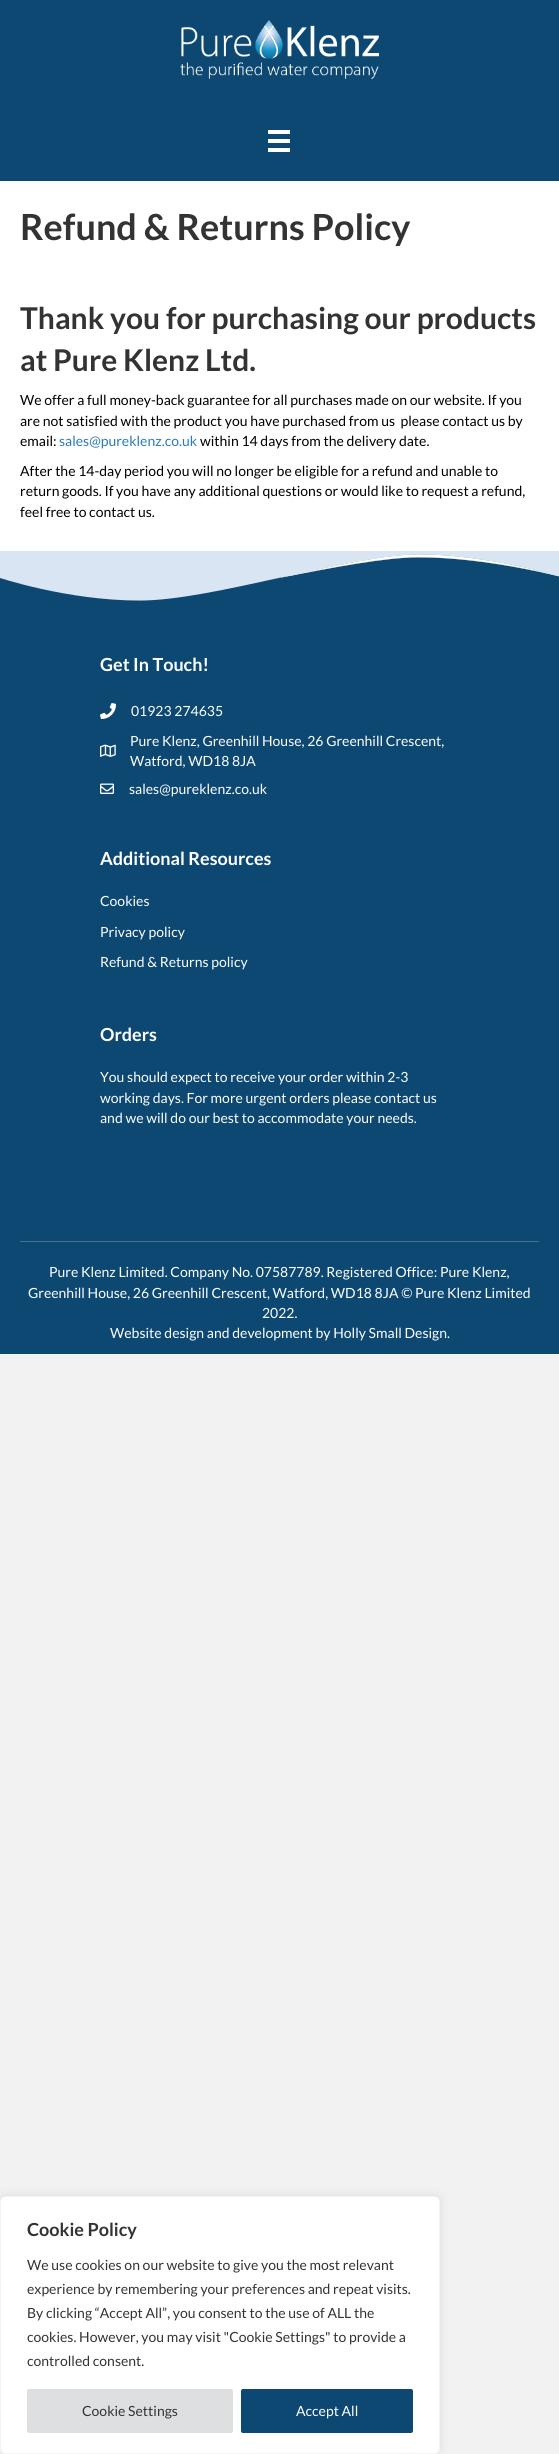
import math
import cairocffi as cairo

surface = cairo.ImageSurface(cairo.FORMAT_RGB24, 559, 2454)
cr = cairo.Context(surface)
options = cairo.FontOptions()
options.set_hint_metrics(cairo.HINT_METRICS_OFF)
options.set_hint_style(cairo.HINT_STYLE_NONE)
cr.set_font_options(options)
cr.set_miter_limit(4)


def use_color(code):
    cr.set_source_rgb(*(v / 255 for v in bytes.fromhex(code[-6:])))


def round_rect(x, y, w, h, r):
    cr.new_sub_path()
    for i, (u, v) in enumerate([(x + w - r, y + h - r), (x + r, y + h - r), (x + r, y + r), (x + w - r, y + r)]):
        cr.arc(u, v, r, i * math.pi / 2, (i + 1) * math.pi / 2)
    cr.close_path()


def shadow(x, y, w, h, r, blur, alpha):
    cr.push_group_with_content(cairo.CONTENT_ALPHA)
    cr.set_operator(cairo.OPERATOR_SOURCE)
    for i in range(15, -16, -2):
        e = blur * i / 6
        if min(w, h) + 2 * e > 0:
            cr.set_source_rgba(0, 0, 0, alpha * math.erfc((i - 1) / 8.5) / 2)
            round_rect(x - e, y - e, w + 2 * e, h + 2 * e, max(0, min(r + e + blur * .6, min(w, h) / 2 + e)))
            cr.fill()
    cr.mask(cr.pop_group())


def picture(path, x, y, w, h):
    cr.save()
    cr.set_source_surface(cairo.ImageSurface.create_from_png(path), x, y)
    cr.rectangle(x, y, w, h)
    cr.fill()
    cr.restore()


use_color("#f2f2f2")
cr.paint()
use_color("#0d4873")
cr.rectangle(0, 0, 559, 181)
cr.fill()
picture("img1.png", 180, 20, 199, 60)
use_color("#ffffff")
cr.rectangle(268, 130, 22, 4)
cr.fill()
cr.rectangle(268, 139, 22, 4)
cr.fill()
cr.rectangle(268, 148, 22, 4)
cr.fill()
cr.rectangle(0, 181, 559, 370)
cr.fill()
cr.select_font_face("Lato", cairo.FONT_SLANT_NORMAL, cairo.FONT_WEIGHT_BOLD)
cr.set_font_size(36)
use_color("#333333")
cr.move_to(20, 240)
cr.show_text("Refund & Returns Policy")
cr.set_font_size(30)
cr.move_to(20, 329)
cr.show_text("Thank you for purchasing our products")
cr.move_to(20, 371)
cr.show_text("at Pure Klenz Ltd.")
cr.select_font_face("Lato")
cr.set_font_size(14)
use_color("#000000")
cr.move_to(20, 405)
cr.show_text("We offer a full money-back guarantee for all purchases made on our website. If you")
cr.move_to(20, 426)
cr.show_text("are not satisfied with the product you have purchased from us  please contact us by")
cr.move_to(20, 446)
cr.show_text("email:")
use_color("#2b7bb9")
cr.move_to(59, 446)
cr.show_text("sales@pureklenz.co.uk")
use_color("#000000")
cr.move_to(200, 446)
cr.show_text("within 14 days from the delivery date.")
cr.move_to(20, 476)
cr.show_text("After the 14-day period you will no longer be eligible for a refund and unable to")
cr.move_to(20, 496)
cr.show_text("return goods. If you have any additional questions or would like to request a refund,")
cr.move_to(20, 517)
cr.show_text("feel free to contact us.")
use_color("#0d4873")
cr.rectangle(0, 554, 559, 800)
cr.fill()
picture("img2.png", 0, 551, 559, 50)
cr.select_font_face("Lato", cairo.FONT_SLANT_NORMAL, cairo.FONT_WEIGHT_BOLD)
cr.set_font_size(18)
use_color("#ffffff")
cr.move_to(100, 671)
cr.show_text("Get In Touch!")
picture("img3.png", 100, 703, 16, 16)
cr.select_font_face("Lato")
cr.set_font_size(14)
cr.move_to(131, 716)
cr.show_text("01923 274635")
picture("img4.png", 100, 744, 16, 13)
cr.move_to(130, 746)
cr.show_text("Pure Klenz, Greenhill House, 26 Greenhill Crescent,")
cr.move_to(130, 766)
cr.show_text("Watford, WD18 8JA")
picture("img5.png", 100, 783, 14, 11)
cr.move_to(129, 794)
cr.show_text("sales@pureklenz.co.uk")
cr.select_font_face("Lato", cairo.FONT_SLANT_NORMAL, cairo.FONT_WEIGHT_BOLD)
cr.set_font_size(18)
cr.move_to(100, 865)
cr.show_text("Additional Resources")
cr.select_font_face("Lato")
cr.set_font_size(14)
cr.move_to(100, 906)
cr.show_text("Cookies")
cr.move_to(100, 937)
cr.show_text("Privacy policy")
cr.move_to(100, 967)
cr.show_text("Refund & Returns policy")
cr.select_font_face("Lato", cairo.FONT_SLANT_NORMAL, cairo.FONT_WEIGHT_BOLD)
cr.set_font_size(18)
cr.move_to(100, 1041)
cr.show_text("Orders")
cr.select_font_face("Lato")
cr.set_font_size(14)
cr.move_to(100, 1082)
cr.show_text("You should expect to receive your order within 2-3")
cr.move_to(100, 1103)
cr.show_text("working days. For more urgent orders please contact us")
cr.move_to(100, 1123)
cr.show_text("and we will do our best to accommodate your needs.")
use_color("#46708e")
cr.rectangle(20, 1241, 519, 1)
cr.fill()
use_color("#ffffff")
cr.move_to(49, 1277)
cr.show_text("Pure Klenz Limited. Company No. 07587789. Registered Office: Pure Klenz,")
cr.move_to(28, 1298)
cr.show_text("Greenhill House, 26 Greenhill Crescent, Watford, WD18 8JA © Pure Klenz Limited")
cr.move_to(262, 1318)
cr.show_text("2022.")
cr.move_to(110, 1338)
cr.show_text("Website design and development by Holly Small Design.")
use_color("#acabab")
shadow(0, 2195, 440, 258, 6, 5, 0.3)
use_color("#ffffff")
round_rect(0.5, 2196.5, 439, 257, 5.5)
cr.fill_preserve()
use_color("#f4f4f4")
cr.set_line_width(1)
cr.stroke()
cr.select_font_face("Lato", cairo.FONT_SLANT_NORMAL, cairo.FONT_WEIGHT_BOLD)
cr.set_font_size(18)
use_color("#333333")
cr.move_to(27, 2236)
cr.show_text("Cookie Policy")
cr.select_font_face("Lato")
cr.set_font_size(14)
cr.move_to(27, 2270)
cr.show_text("We use cookies on our website to give you the most relevant")
cr.move_to(27, 2294)
cr.show_text("experience by remembering your preferences and repeat visits.")
cr.move_to(27, 2318)
cr.show_text("By clicking “Accept All”, you consent to the use of ALL the")
cr.move_to(27, 2342)
cr.show_text("cookies. However, you may visit \"Cookie Settings\" to provide a")
cr.move_to(27, 2366)
cr.show_text("controlled consent.")
use_color("#dedfe0")
round_rect(28, 2390, 204, 42, 1)
cr.fill_preserve()
cr.set_line_width(2)
cr.stroke()
use_color("#333333")
cr.move_to(82, 2416)
cr.show_text("Cookie Settings")
use_color("#0d4873")
round_rect(242, 2390, 170, 42, 1)
cr.fill_preserve()
cr.stroke()
use_color("#ffffff")
cr.move_to(296, 2416)
cr.show_text("Accept All")
surface.write_to_png("result.png")
